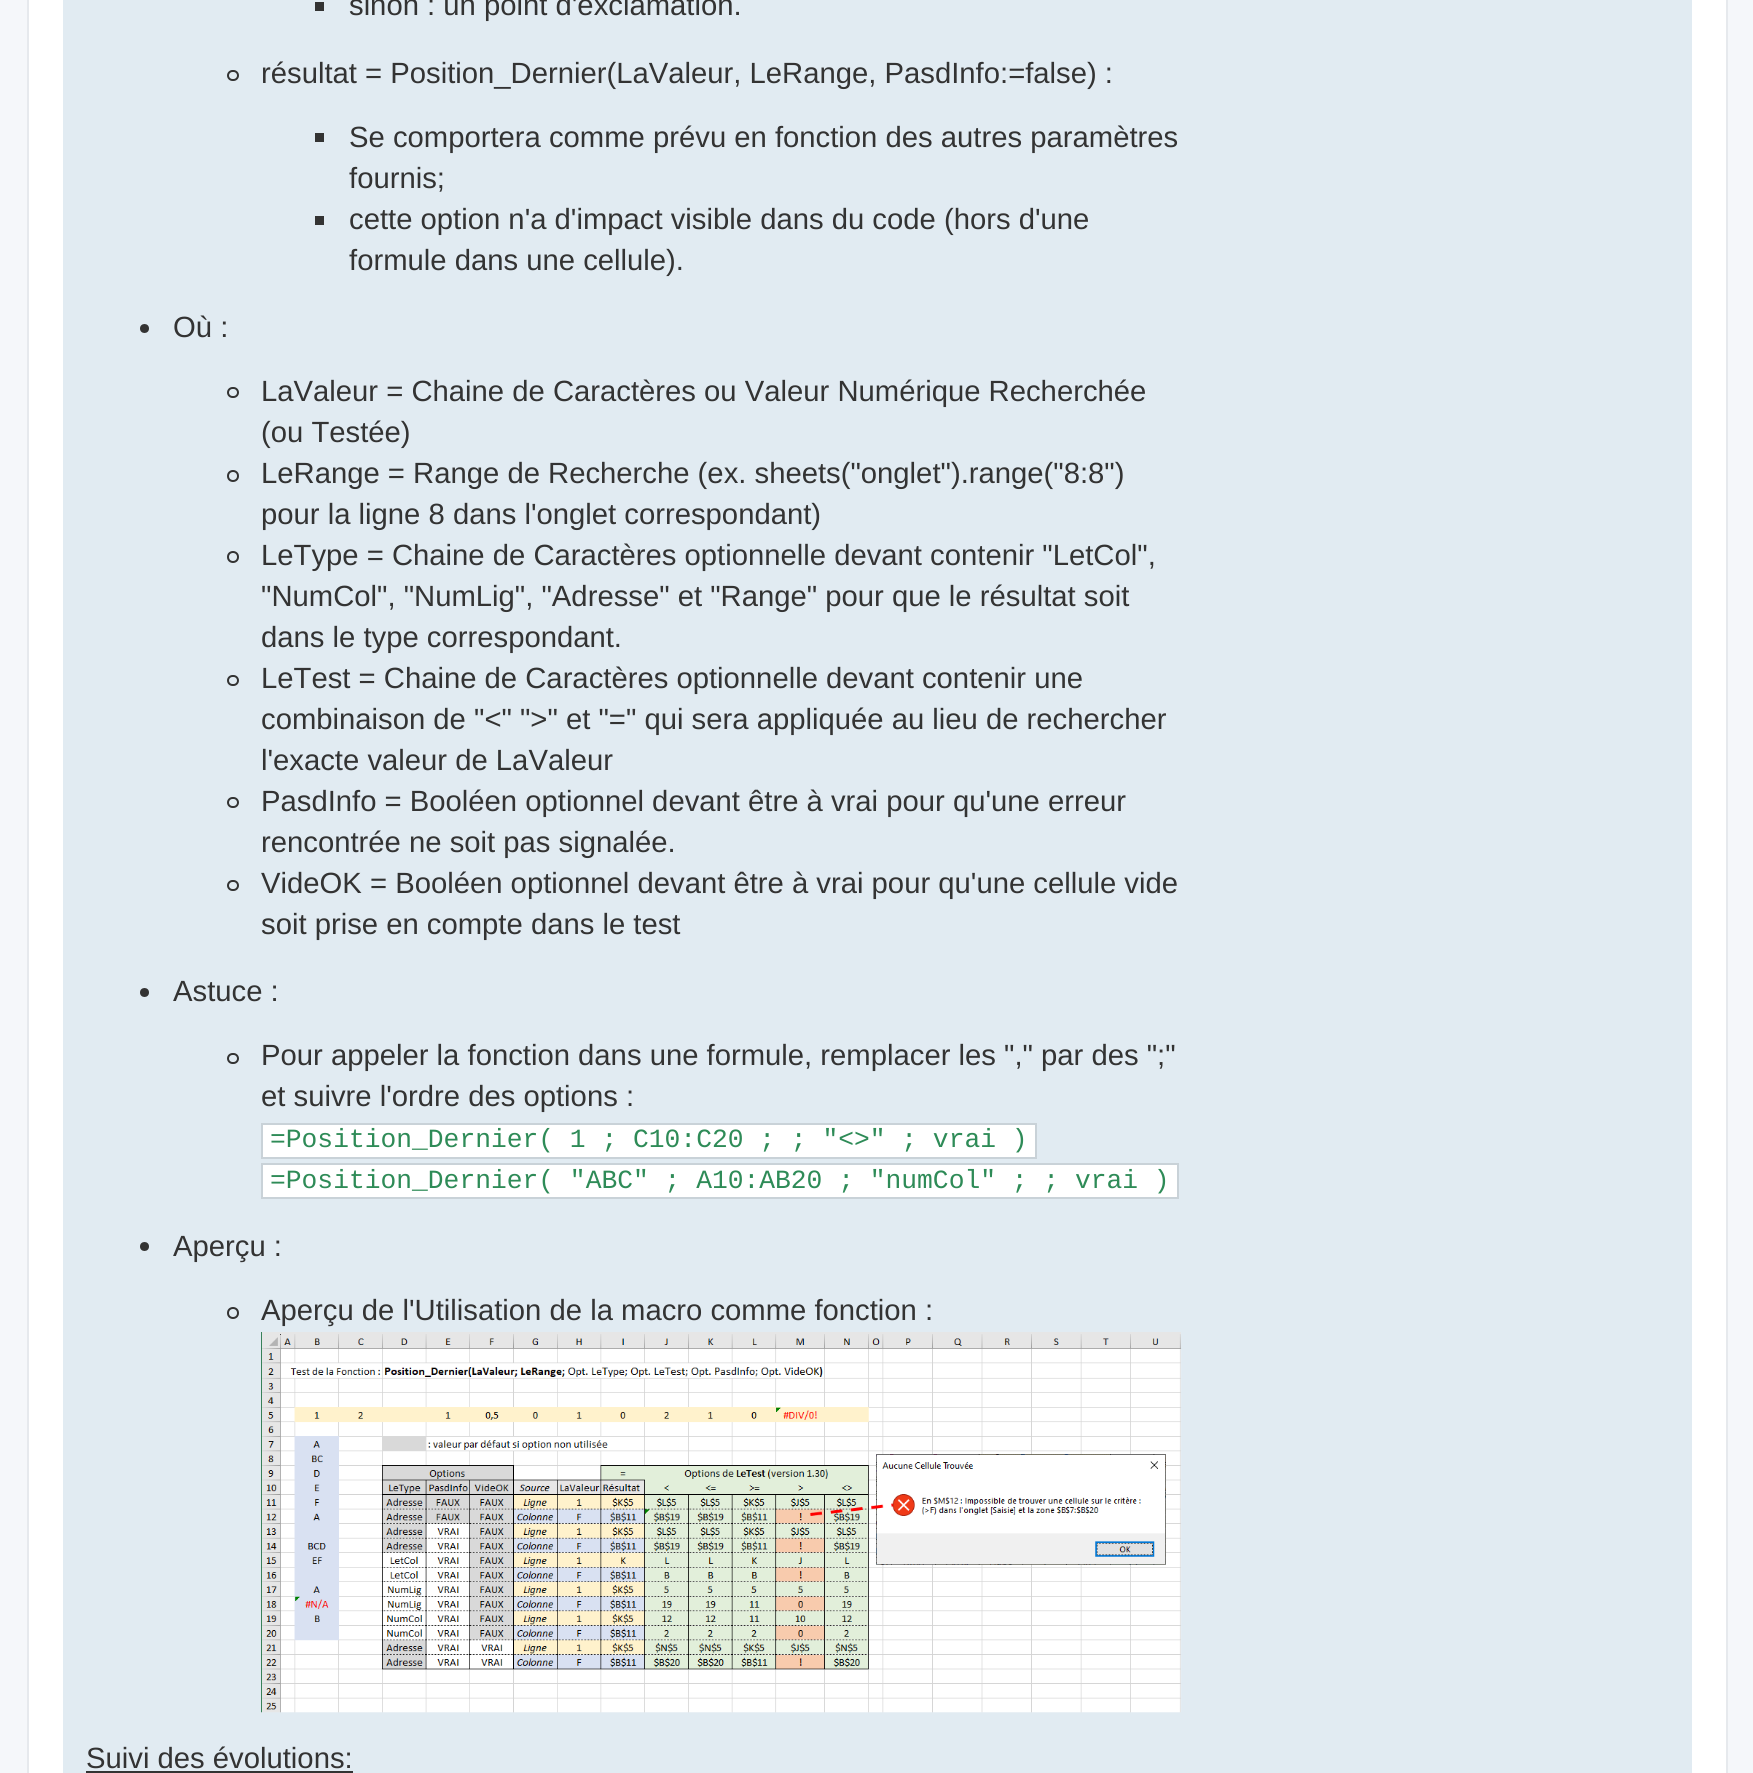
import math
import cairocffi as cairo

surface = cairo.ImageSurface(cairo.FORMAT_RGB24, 1753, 1773)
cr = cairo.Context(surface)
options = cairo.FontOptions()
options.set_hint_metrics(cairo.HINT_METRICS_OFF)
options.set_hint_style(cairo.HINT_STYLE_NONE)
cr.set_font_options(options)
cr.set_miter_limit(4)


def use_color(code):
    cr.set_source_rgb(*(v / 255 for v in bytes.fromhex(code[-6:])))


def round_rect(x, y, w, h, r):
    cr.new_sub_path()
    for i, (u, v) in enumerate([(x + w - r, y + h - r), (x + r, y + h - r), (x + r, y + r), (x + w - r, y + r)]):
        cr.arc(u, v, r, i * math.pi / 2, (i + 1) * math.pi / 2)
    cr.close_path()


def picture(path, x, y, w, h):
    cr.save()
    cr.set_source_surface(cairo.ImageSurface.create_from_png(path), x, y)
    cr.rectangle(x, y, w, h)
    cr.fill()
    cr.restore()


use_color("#f5f7fa")
cr.paint()
use_color("#ffffff")
cr.rectangle(28, -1, 1699, 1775)
cr.fill_preserve()
use_color("#e6e9ed")
cr.stroke()
use_color("#e1ebf2")
cr.rectangle(63, 0, 1629, 1773)
cr.fill()
use_color("#333333")
cr.rectangle(315, 2, 9, 9)
cr.fill()
cr.select_font_face("Liberation Sans")
cr.set_font_size(29.25)
cr.move_to(349, 15)
cr.show_text("sinon : un point d'exclamation.")
round_rect(228, 71, 10, 9, 4.5)
cr.stroke()
cr.move_to(261, 83)
cr.show_text("résultat = Position_Dernier(LaValeur, LeRange, PasdInfo:=false) :")
cr.rectangle(315, 133, 9, 9)
cr.fill()
cr.move_to(349, 147)
cr.show_text("Se comportera comme prévu en fonction des autres paramètres")
cr.move_to(349, 188)
cr.show_text("fournis;")
cr.rectangle(315, 216, 9, 9)
cr.fill()
cr.move_to(349, 229)
cr.show_text("cette option n'a d'impact visible dans du code (hors d'une")
cr.move_to(349, 270)
cr.show_text("formule dans une cellule).")
cr.new_path()
cr.arc(144.5, 328.5, 4.5, 0, 2 * math.pi)
cr.fill()
cr.move_to(173, 337)
cr.show_text("Où :")
round_rect(228, 388, 10, 9, 4.5)
cr.stroke()
cr.move_to(261, 401)
cr.show_text("LaValeur = Chaine de Caractères ou Valeur Numérique Recherchée")
cr.move_to(261, 442)
cr.show_text("(ou Testée)")
cr.new_path()
cr.arc(233, 476, 5, 0, 2 * math.pi)
cr.stroke()
cr.move_to(261, 483)
cr.show_text("LeRange = Range de Recherche (ex. sheets(\"onglet\").range(\"8:8\")")
cr.move_to(261, 524)
cr.show_text("pour la ligne 8 dans l'onglet correspondant)")
cr.new_path()
cr.arc(233, 557, 5, 0, 2 * math.pi)
cr.stroke()
cr.move_to(261, 565)
cr.show_text("LeType = Chaine de Caractères optionnelle devant contenir \"LetCol\",")
cr.move_to(261, 606)
cr.show_text("\"NumCol\", \"NumLig\", \"Adresse\" et \"Range\" pour que le résultat soit")
cr.move_to(261, 647)
cr.show_text("dans le type correspondant.")
round_rect(228, 676, 10, 9, 4.5)
cr.stroke()
cr.move_to(261, 688)
cr.show_text("LeTest = Chaine de Caractères optionnelle devant contenir une")
cr.move_to(261, 729)
cr.show_text("combinaison de \"<\" \">\" et \"=\" qui sera appliquée au lieu de rechercher")
cr.move_to(261, 770)
cr.show_text("l'exacte valeur de LaValeur")
round_rect(228, 798, 10, 9, 4.5)
cr.stroke()
cr.move_to(261, 811)
cr.show_text("PasdInfo = Booléen optionnel devant être à vrai pour qu'une erreur")
cr.move_to(261, 852)
cr.show_text("rencontrée ne soit pas signalée.")
round_rect(228, 881, 10, 9, 4.5)
cr.stroke()
cr.move_to(261, 893)
cr.show_text("VideOK = Booléen optionnel devant être à vrai pour qu'une cellule vide")
cr.move_to(261, 934)
cr.show_text("soit prise en compte dans le test")
cr.new_path()
cr.arc(144.5, 992.5, 4.5, 0, 2 * math.pi)
cr.fill()
cr.move_to(173, 1001)
cr.show_text("Astuce :")
round_rect(228, 1054, 10, 9, 4.5)
cr.stroke()
cr.move_to(261, 1065)
cr.show_text("Pour appeler la fonction dans une formule, remplacer les \",\" par des \";\"")
cr.move_to(261, 1106)
cr.show_text("et suivre l'ordre des options :")
use_color("#ffffff")
cr.rectangle(262, 1124, 774, 34)
cr.fill_preserve()
use_color("#c9d2d8")
cr.stroke()
cr.select_font_face("Liberation Mono")
cr.set_font_size(26.3)
use_color("#2e8b57")
cr.move_to(270, 1147)
cr.show_text("=Position_Dernier( 1 ; C10:C20 ; ; \"<>\" ; vrai )")
use_color("#ffffff")
cr.rectangle(262, 1164, 916, 34)
cr.fill_preserve()
use_color("#c9d2d8")
cr.stroke()
use_color("#2e8b57")
cr.move_to(270, 1188)
cr.show_text("=Position_Dernier( \"ABC\" ; A10:AB20 ; \"numCol\" ; ; vrai )")
use_color("#333333")
cr.new_path()
cr.arc(144.5, 1246.5, 4.5, 0, 2 * math.pi)
cr.fill()
cr.select_font_face("Liberation Sans")
cr.set_font_size(29.25)
cr.move_to(173, 1256)
cr.show_text("Aperçu :")
cr.new_path()
cr.arc(233, 1313, 5, 0, 2 * math.pi)
cr.stroke()
cr.move_to(261, 1320)
cr.show_text("Aperçu de l'Utilisation de la macro comme fonction :")
picture("img1.png", 261, 1332, 921, 381)
cr.move_to(86, 1768)
cr.show_text("Suivi des évolutions:")
cr.rectangle(86, 1771, 267, 2)
cr.fill()
surface.write_to_png("result.png")
